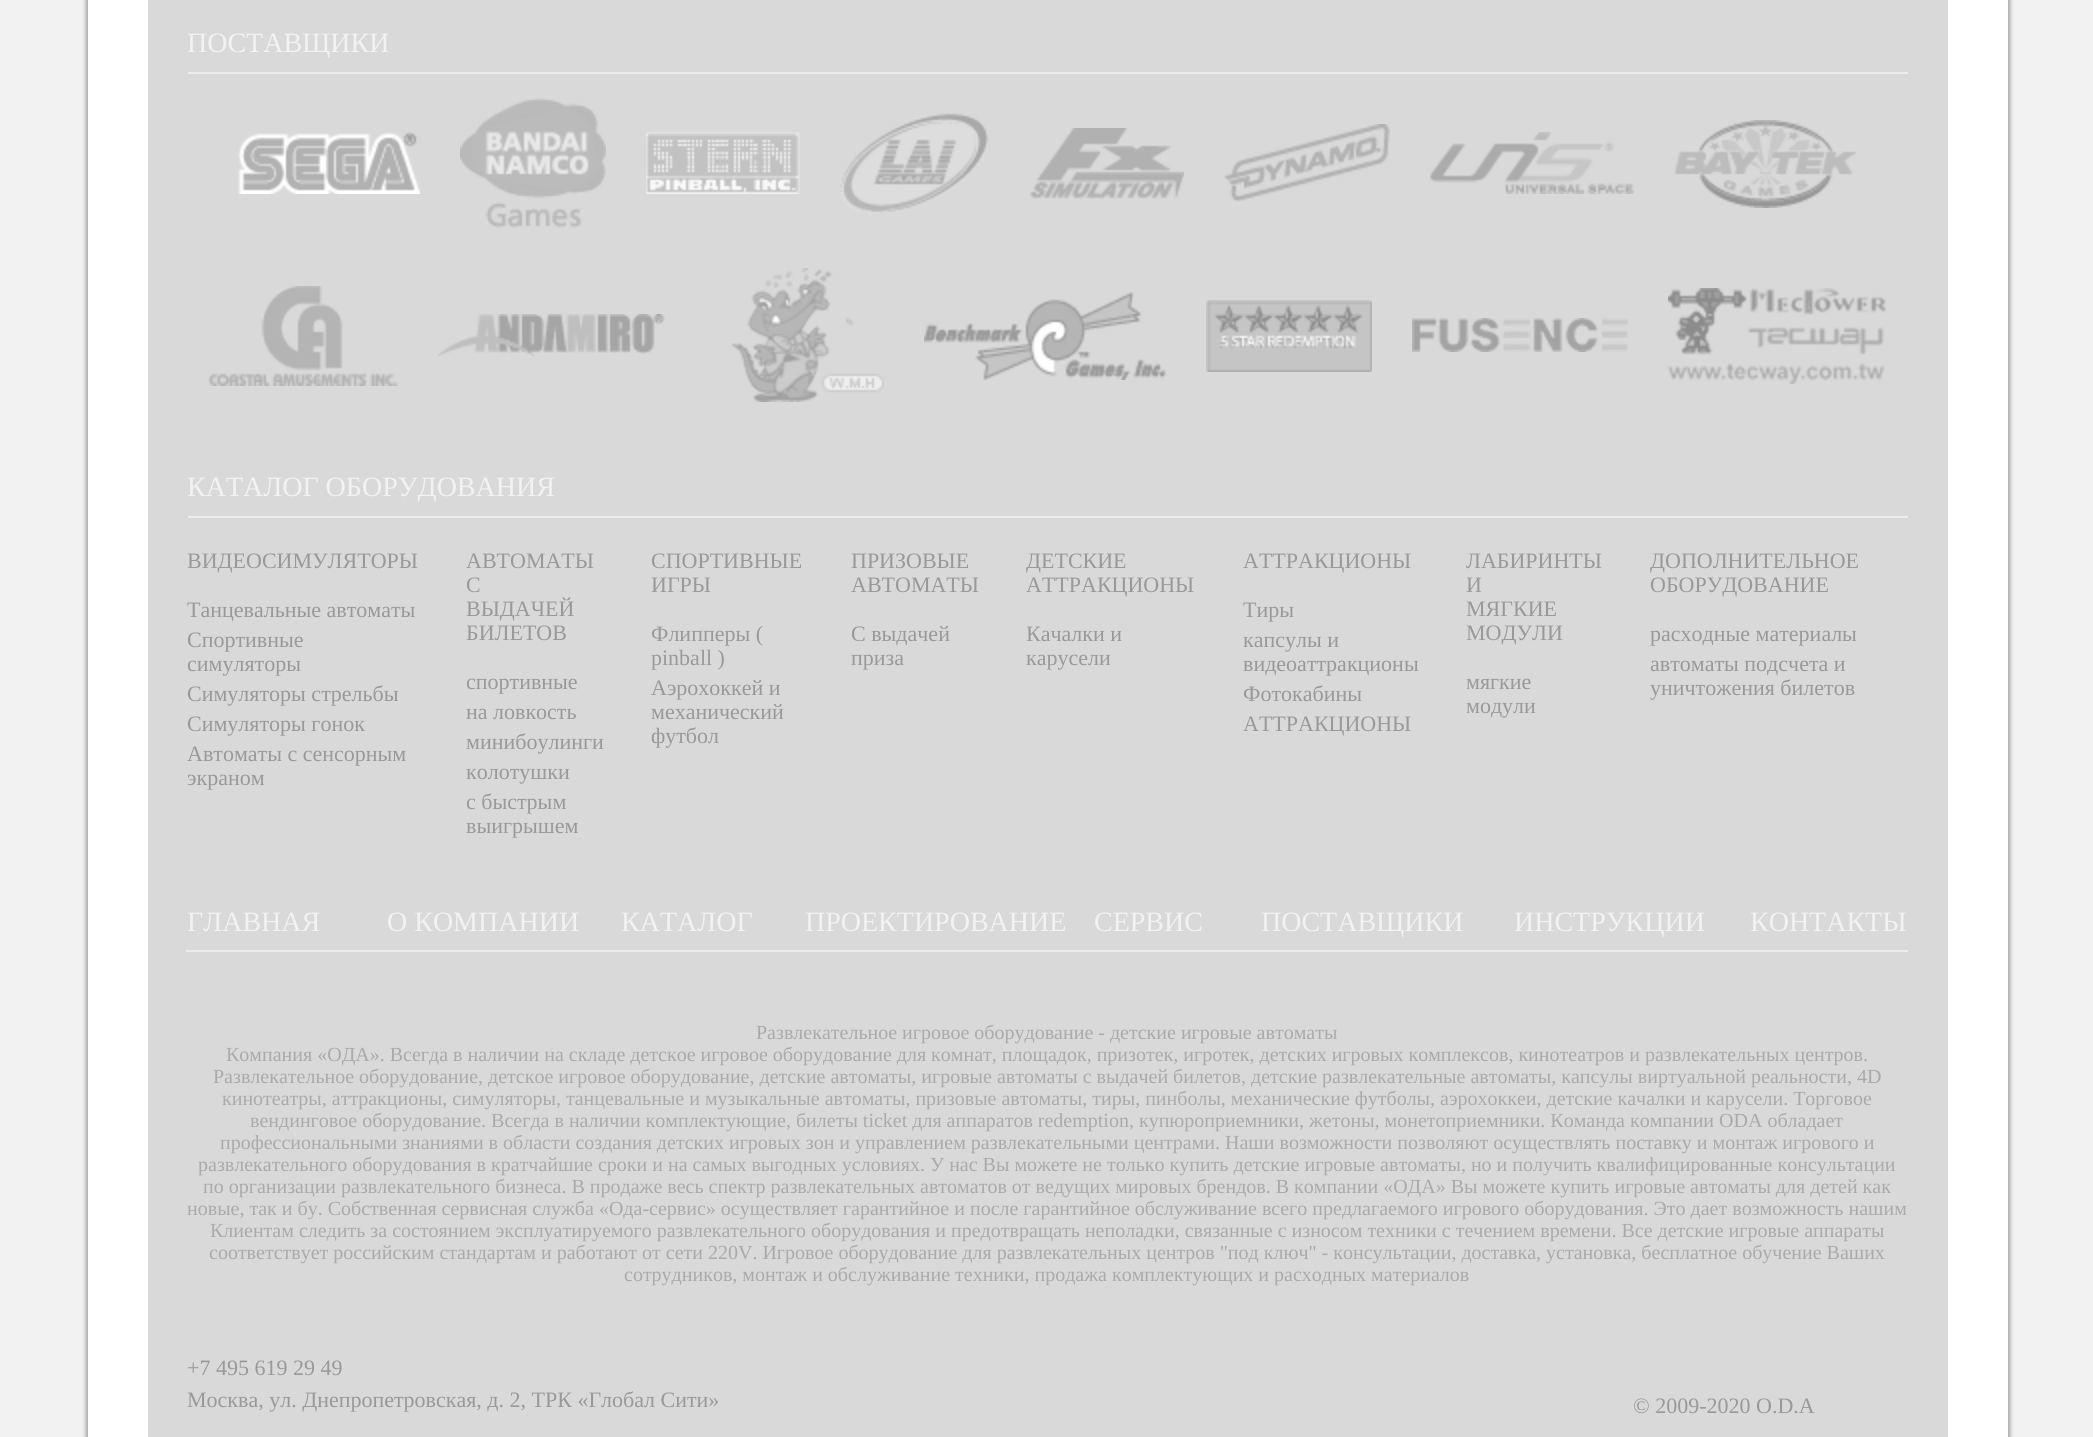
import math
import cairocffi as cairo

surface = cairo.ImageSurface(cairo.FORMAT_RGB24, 2093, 1437)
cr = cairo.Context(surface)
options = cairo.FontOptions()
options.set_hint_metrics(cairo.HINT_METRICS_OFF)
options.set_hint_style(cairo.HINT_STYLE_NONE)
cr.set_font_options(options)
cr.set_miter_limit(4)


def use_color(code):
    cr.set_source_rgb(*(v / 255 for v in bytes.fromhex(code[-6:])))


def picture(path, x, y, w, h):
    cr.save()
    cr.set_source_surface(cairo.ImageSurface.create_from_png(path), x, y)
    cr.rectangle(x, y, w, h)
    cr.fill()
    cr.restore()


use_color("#f2f2f2")
cr.paint()
picture("img1.png", 82, 0, 6, 1437)
use_color("#ffffff")
cr.rectangle(88, 0, 1920, 1437)
cr.fill()
use_color("#d9d9d9")
cr.rectangle(148, 0, 1800, 1437)
cr.fill()
use_color("#ececec")
cr.rectangle(188, 72, 1720, 2)
cr.fill()
cr.select_font_face("Liberation Serif")
cr.set_font_size(28)
use_color("#f2f2f2")
cr.move_to(187, 52)
cr.show_text("ПОСТАВЩИКИ")
picture("img2.png", 238, 132, 182, 62)
picture("img3.png", 460, 98, 146, 130)
picture("img4.png", 646, 132, 154, 62)
picture("img5.png", 840, 113, 149, 99)
picture("img6.png", 1030, 128, 154, 72)
picture("img7.png", 1224, 124, 166, 78)
picture("img8.png", 1430, 132, 204, 62)
picture("img9.png", 1674, 120, 182, 88)
picture("img10.png", 208, 286, 190, 100)
picture("img11.png", 438, 314, 227, 42)
picture("img12.png", 731, 268, 153, 134)
picture("img13.png", 924, 292, 242, 88)
picture("img14.png", 1206, 300, 166, 72)
picture("img15.png", 1412, 318, 216, 34)
picture("img16.png", 1668, 288, 218, 96)
use_color("#ececec")
cr.rectangle(188, 516, 1720, 2)
cr.fill()
use_color("#f2f2f2")
cr.move_to(187, 496)
cr.show_text("КАТАЛОГ ОБОРУДОВАНИЯ")
cr.set_font_size(22)
use_color("#999999")
cr.move_to(187, 568)
cr.show_text("ВИДЕОСИМУЛЯТОРЫ")
cr.move_to(187, 617)
cr.show_text("Танцевальные автоматы")
cr.move_to(187, 647)
cr.show_text("Спортивные")
cr.move_to(187, 671)
cr.show_text("симуляторы")
cr.move_to(187, 701)
cr.show_text("Симуляторы стрельбы")
cr.move_to(187, 731)
cr.show_text("Симуляторы гонок")
cr.move_to(187, 761)
cr.show_text("Автоматы с сенсорным")
cr.move_to(187, 785)
cr.show_text("экраном")
cr.move_to(466, 568)
cr.show_text("АВТОМАТЫ")
cr.move_to(466, 592)
cr.show_text("С")
cr.move_to(466, 616)
cr.show_text("ВЫДАЧЕЙ")
cr.move_to(466, 640)
cr.show_text("БИЛЕТОВ")
cr.move_to(466, 689)
cr.show_text("спортивные")
cr.move_to(466, 719)
cr.show_text("на ловкость")
cr.move_to(466, 749)
cr.show_text("минибоулинги")
cr.move_to(466, 779)
cr.show_text("колотушки")
cr.move_to(466, 809)
cr.show_text("с быстрым")
cr.move_to(466, 833)
cr.show_text("выигрышем")
cr.move_to(651, 568)
cr.show_text("СПОРТИВНЫЕ")
cr.move_to(651, 592)
cr.show_text("ИГРЫ")
cr.move_to(651, 641)
cr.show_text("Флипперы (")
cr.move_to(651, 665)
cr.show_text("pinball )")
cr.move_to(651, 695)
cr.show_text("Аэрохоккей и")
cr.move_to(651, 719)
cr.show_text("механический")
cr.move_to(651, 743)
cr.show_text("футбол")
cr.move_to(851, 568)
cr.show_text("ПРИЗОВЫЕ")
cr.move_to(851, 592)
cr.show_text("АВТОМАТЫ")
cr.move_to(851, 641)
cr.show_text("С выдачей")
cr.move_to(851, 665)
cr.show_text("приза")
cr.move_to(1026, 568)
cr.show_text("ДЕТСКИЕ")
cr.move_to(1026, 592)
cr.show_text("АТТРАКЦИОНЫ")
cr.move_to(1026, 641)
cr.show_text("Качалки и")
cr.move_to(1026, 665)
cr.show_text("карусели")
cr.move_to(1243, 568)
cr.show_text("АТТРАКЦИОНЫ")
cr.move_to(1243, 617)
cr.show_text("Тиры")
cr.move_to(1243, 647)
cr.show_text("капсулы и")
cr.move_to(1243, 671)
cr.show_text("видеоаттракционы")
cr.move_to(1243, 701)
cr.show_text("Фотокабины")
cr.move_to(1243, 731)
cr.show_text("АТТРАКЦИОНЫ")
cr.move_to(1466, 568)
cr.show_text("ЛАБИРИНТЫ")
cr.move_to(1466, 592)
cr.show_text("И")
cr.move_to(1466, 616)
cr.show_text("МЯГКИЕ")
cr.move_to(1466, 640)
cr.show_text("МОДУЛИ")
cr.move_to(1466, 689)
cr.show_text("мягкие")
cr.move_to(1466, 713)
cr.show_text("модули")
cr.move_to(1650, 568)
cr.show_text("ДОПОЛНИТЕЛЬНОЕ")
cr.move_to(1650, 592)
cr.show_text("ОБОРУДОВАНИЕ")
cr.move_to(1650, 641)
cr.show_text("расходные материалы")
cr.move_to(1650, 671)
cr.show_text("автоматы подсчета и")
cr.move_to(1650, 695)
cr.show_text("уничтожения билетов")
cr.set_font_size(28)
use_color("#f2f2f2")
cr.move_to(187, 931)
cr.show_text("ГЛАВНАЯ")
cr.move_to(387, 931)
cr.show_text("О КОМПАНИИ")
cr.move_to(621, 931)
cr.show_text("КАТАЛОГ")
cr.move_to(805, 931)
cr.show_text("ПРОЕКТИРОВАНИЕ")
cr.move_to(1094, 931)
cr.show_text("СЕРВИС")
cr.move_to(1261, 931)
cr.show_text("ПОСТАВЩИКИ")
cr.move_to(1514, 931)
cr.show_text("ИНСТРУКЦИИ")
use_color("#ececec")
cr.rectangle(186, 950, 1722, 2)
cr.fill()
use_color("#f2f2f2")
cr.move_to(1750, 931)
cr.show_text("КОНТАКТЫ")
cr.set_font_size(20)
use_color("#aaaaaa")
cr.move_to(756, 1039)
cr.show_text("Развлекательное игровое оборудование - детские игровые автоматы")
cr.move_to(226, 1061)
cr.show_text("Компания «ОДА». Всегда в наличии на складе детское игровое оборудование для комнат, площадок, призотек, игротек, детских игровых комплексов, кинотеатров и развлекательных центров.")
cr.move_to(213, 1083)
cr.show_text("Развлекательное оборудование, детское игровое оборудование, детские автоматы, игровые автоматы с выдачей билетов, детские развлекательные автоматы, капсулы виртуальной реальности, 4D")
cr.move_to(222, 1105)
cr.show_text("кинотеатры, аттракционы, симуляторы, танцевальные и музыкальные автоматы, призовые автоматы, тиры, пинболы, механические футболы, аэрохоккеи, детские качалки и карусели. Торговое")
cr.move_to(250, 1127)
cr.show_text("вендинговое оборудование. Всегда в наличии комплектующие, билеты ticket для аппаратов redemption, купюроприемники, жетоны, монетоприемники. Команда компании ODA обладает")
cr.move_to(220, 1149)
cr.show_text("профессиональными знаниями в области создания детских игровых зон и управлением развлекательными центрами. Наши возможности позволяют осуществлять поставку и монтаж игрового и")
cr.move_to(198, 1171)
cr.show_text("развлекательного оборудования в кратчайшие сроки и на самых выгодных условиях. У нас Вы можете не только купить детские игровые автоматы, но и получить квалифицированные консультации")
cr.move_to(203, 1193)
cr.show_text("по организации развлекательного бизнеса. В продаже весь спектр развлекательных автоматов от ведущих мировых брендов. В компании «ОДА» Вы можете купить игровые автоматы для детей как")
cr.move_to(187, 1215)
cr.show_text("новые, так и бу. Собственная сервисная служба «Ода-сервис» осуществляет гарантийное и после гарантийное обслуживание всего предлагаемого игрового оборудования. Это дает возможность нашим")
cr.move_to(210, 1237)
cr.show_text("Клиентам следить за состоянием эксплуатируемого развлекательного оборудования и предотвращать неполадки, связанные с износом техники с течением времени. Все детские игровые аппараты")
cr.move_to(209, 1259)
cr.show_text("соответствует российским стандартам и работают от сети 220V. Игровое оборудование для развлекательных центров \"под ключ\" - консультации, доставка, установка, бесплатное обучение Ваших")
cr.move_to(624, 1281)
cr.show_text("сотрудников, монтаж и обслуживание техники, продажа комплектующих и расходных материалов")
cr.set_font_size(22)
use_color("#999999")
cr.move_to(187, 1375)
cr.show_text("+7 495 619 29 49")
cr.move_to(187, 1407)
cr.show_text("Москва, ул. Днепропетровская, д. 2, ТРК «Глобал Сити»")
cr.move_to(1633, 1413)
cr.show_text("© 2009-2020 O.D.A")
picture("img17.png", 2008, 0, 6, 1437)
surface.write_to_png("result.png")
